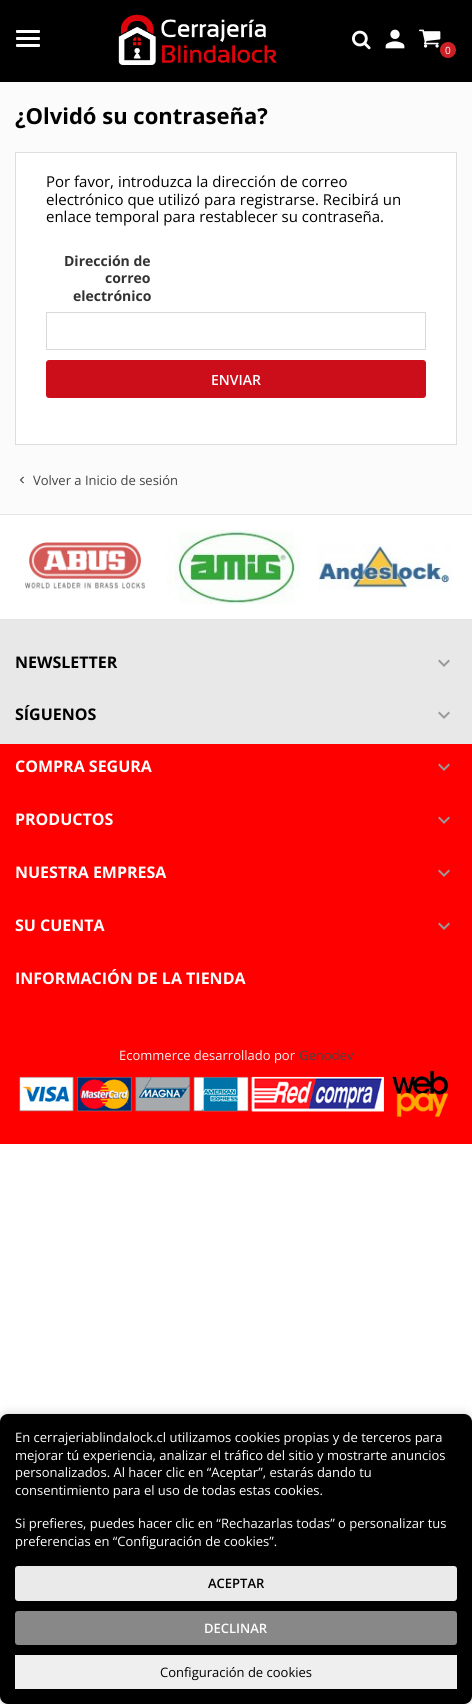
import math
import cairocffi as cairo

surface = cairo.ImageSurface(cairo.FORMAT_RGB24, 472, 1704)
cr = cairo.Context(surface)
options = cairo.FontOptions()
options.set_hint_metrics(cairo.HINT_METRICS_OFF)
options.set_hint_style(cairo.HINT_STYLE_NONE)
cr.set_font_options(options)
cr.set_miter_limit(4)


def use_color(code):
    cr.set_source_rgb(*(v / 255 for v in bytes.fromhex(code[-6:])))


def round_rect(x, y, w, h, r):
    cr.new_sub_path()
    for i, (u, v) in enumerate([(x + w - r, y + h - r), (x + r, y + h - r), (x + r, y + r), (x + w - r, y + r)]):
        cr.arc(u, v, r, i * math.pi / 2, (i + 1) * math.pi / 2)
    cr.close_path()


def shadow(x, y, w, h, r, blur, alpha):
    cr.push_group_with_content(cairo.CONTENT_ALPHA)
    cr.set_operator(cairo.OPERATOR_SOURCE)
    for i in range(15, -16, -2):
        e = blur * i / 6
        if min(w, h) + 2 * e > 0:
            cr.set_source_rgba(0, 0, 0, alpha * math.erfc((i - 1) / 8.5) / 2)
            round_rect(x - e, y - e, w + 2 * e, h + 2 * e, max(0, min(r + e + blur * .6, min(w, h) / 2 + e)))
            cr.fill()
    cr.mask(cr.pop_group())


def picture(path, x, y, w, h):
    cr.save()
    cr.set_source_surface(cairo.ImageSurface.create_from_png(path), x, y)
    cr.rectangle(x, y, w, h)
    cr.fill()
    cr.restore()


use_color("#ffffff")
cr.paint()
use_color("#000000")
cr.rectangle(0, 0, 472, 82)
cr.fill()
use_color("#ffffff")
round_rect(16, 37, 24, 3, 1)
cr.fill()
round_rect(16, 30, 24, 3, 1)
cr.fill()
round_rect(16, 44, 24, 3, 1)
cr.fill()
picture("img1.png", 118, 14, 159, 51)
picture("img2.png", 352, 30, 19, 20)
picture("img3.png", 385, 29, 20, 20)
picture("img4.png", 419, 29, 22, 19)
use_color("#cd2026")
cr.arc(448, 50, 8, 0, 2 * math.pi)
cr.fill()
cr.select_font_face("Open Sans")
cr.set_font_size(10)
use_color("#ffffff")
cr.move_to(445, 54)
cr.show_text("0")
use_color("#fbfbfb")
cr.rectangle(0, 82, 472, 432)
cr.fill()
cr.select_font_face("Open Sans", cairo.FONT_SLANT_NORMAL, cairo.FONT_WEIGHT_BOLD)
cr.set_font_size(22)
use_color("#000000")
cr.move_to(15, 124)
cr.show_text("¿Olvidó su contraseña?")
use_color("#ffffff")
cr.rectangle(15.5, 152.5, 441, 292)
cr.fill_preserve()
use_color("#dddddd")
cr.set_line_width(1)
cr.stroke()
cr.select_font_face("Open Sans")
cr.set_font_size(15)
use_color("#000000")
cr.move_to(46, 187)
cr.show_text("Por favor, introduzca la dirección de correo")
cr.move_to(46, 205)
cr.show_text("electrónico que utilizó para registrarse. Recibirá un")
cr.move_to(46, 222)
cr.show_text("enlace temporal para restablecer su contraseña.")
cr.select_font_face("Open Sans", cairo.FONT_SLANT_NORMAL, cairo.FONT_WEIGHT_BOLD)
cr.set_font_size(14)
use_color("#333333")
cr.move_to(64, 266)
cr.show_text("Dirección de")
cr.move_to(105, 283)
cr.show_text("correo")
cr.move_to(73, 301)
cr.show_text("electrónico")
cr.rectangle(46.5, 312.5, 379, 37)
use_color("#d9d9d9")
cr.stroke()
use_color("#cc0d1a")
round_rect(46, 360, 380, 38, 3)
cr.fill()
cr.select_font_face("Open Sans SemiBold")
use_color("#ffffff")
cr.move_to(211, 385)
cr.show_text("ENVIAR")
picture("img5.png", 19, 476, 5, 8)
cr.select_font_face("Open Sans")
cr.set_font_size(13)
use_color("#444444")
cr.move_to(33, 485)
cr.show_text("Volver a Inicio de sesión")
use_color("#e4e4e4")
cr.rectangle(0, 514, 472, 1)
cr.fill()
cr.rectangle(0, 619, 472, 1)
cr.fill()
picture("img6.png", 25, 542, 120, 47)
picture("img7.png", 167, 530, 133, 74)
picture("img8.png", 318, 544, 134, 46)
use_color("#e8e8e8")
cr.rectangle(0, 620, 472, 124)
cr.fill()
cr.select_font_face("Open Sans", cairo.FONT_SLANT_NORMAL, cairo.FONT_WEIGHT_BOLD)
cr.set_font_size(16)
use_color("#000000")
cr.move_to(15, 668)
cr.show_text("NEWSLETTER")
picture("img9.png", 438, 659, 12, 8)
cr.move_to(15, 720)
cr.show_text("SÍGUENOS")
picture("img9.png", 438, 711, 12, 8)
use_color("#ff0000")
cr.rectangle(0, 744, 472, 400)
cr.fill()
use_color("#ffffff")
cr.move_to(15, 772)
cr.show_text("COMPRA SEGURA")
picture("img10.png", 438, 763, 12, 8)
cr.move_to(15, 825)
cr.show_text("PRODUCTOS")
picture("img10.png", 438, 816, 12, 8)
cr.move_to(15, 878)
cr.show_text("NUESTRA EMPRESA")
picture("img10.png", 438, 869, 12, 8)
cr.move_to(15, 931)
cr.show_text("SU CUENTA")
picture("img10.png", 438, 922, 12, 8)
cr.move_to(15, 984)
cr.show_text("INFORMACIÓN DE LA TIENDA")
cr.select_font_face("Open Sans")
cr.set_font_size(13)
use_color("#f4f4f4")
cr.move_to(119, 1060)
cr.show_text("Ecommerce desarrollado por")
use_color("#444444")
cr.move_to(299, 1060)
cr.show_text("Genodev")
picture("img11.png", 19, 1071, 430, 46)
use_color("#000000")
shadow(0, 1414, 472, 290, 8, 5, 0.2)
use_color("#000000")
round_rect(0, 1414, 472, 290, 8)
cr.fill()
use_color("#ffffff")
cr.move_to(15, 1442)
cr.show_text("En cerrajeriablindalock.cl utilizamos cookies propias y de terceros para")
cr.move_to(15, 1460)
cr.show_text("mejorar tú experiencia, analizar el tráfico del sitio y mostrarte anuncios")
cr.move_to(15, 1477)
cr.show_text("personalizados. Al hacer clic en “Aceptar”, estarás dando tu")
cr.move_to(15, 1495)
cr.show_text("consentimiento para el uso de todas estas cookies.")
cr.move_to(15, 1528)
cr.show_text("Si prefieres, puedes hacer clic en “Rechazarlas todas” o personalizar tus")
cr.move_to(15, 1546)
cr.show_text("preferencias en “Configuración de cookies”.")
use_color("#eaeaea")
round_rect(15, 1566, 442, 35, 3)
cr.fill()
cr.select_font_face("Open Sans SemiBold")
use_color("#000000")
cr.move_to(208, 1588)
cr.show_text("ACEPTAR")
use_color("#888888")
round_rect(15, 1611, 442, 34, 3)
cr.fill()
use_color("#ffffff")
cr.move_to(204, 1633)
cr.show_text("DECLINAR")
use_color("#efefef")
cr.rectangle(15, 1655, 442, 34)
cr.fill()
cr.select_font_face("Open Sans")
use_color("#000000")
cr.move_to(160, 1677)
cr.show_text("Configuración de cookies")
surface.write_to_png("result.png")
